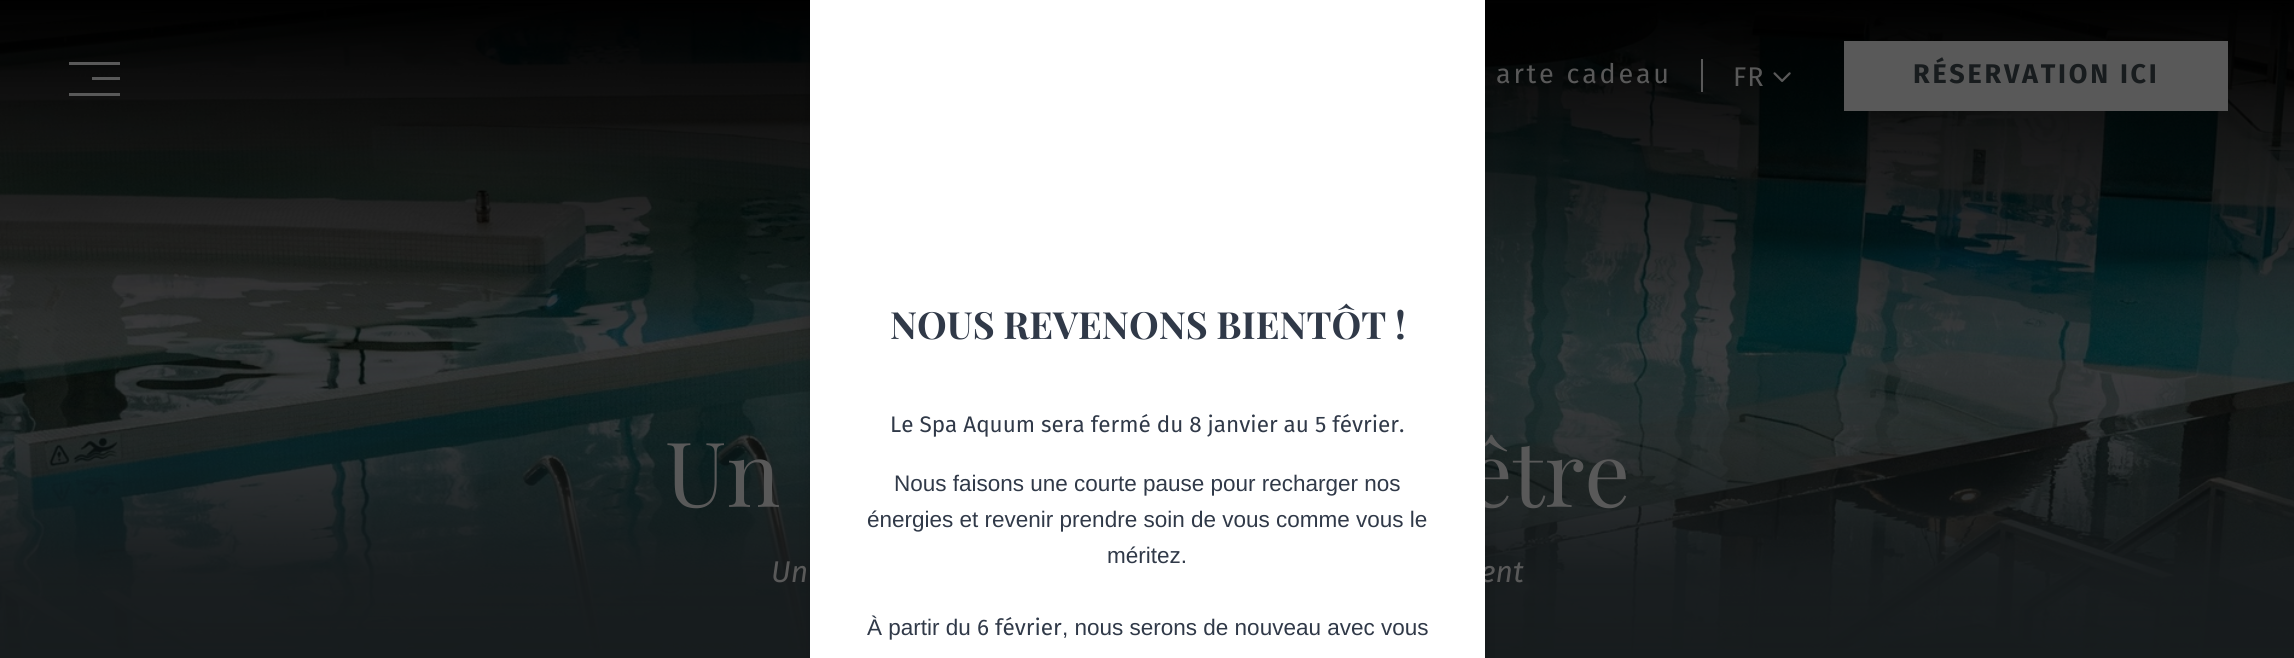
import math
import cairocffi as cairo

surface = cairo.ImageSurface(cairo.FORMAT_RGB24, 2294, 658)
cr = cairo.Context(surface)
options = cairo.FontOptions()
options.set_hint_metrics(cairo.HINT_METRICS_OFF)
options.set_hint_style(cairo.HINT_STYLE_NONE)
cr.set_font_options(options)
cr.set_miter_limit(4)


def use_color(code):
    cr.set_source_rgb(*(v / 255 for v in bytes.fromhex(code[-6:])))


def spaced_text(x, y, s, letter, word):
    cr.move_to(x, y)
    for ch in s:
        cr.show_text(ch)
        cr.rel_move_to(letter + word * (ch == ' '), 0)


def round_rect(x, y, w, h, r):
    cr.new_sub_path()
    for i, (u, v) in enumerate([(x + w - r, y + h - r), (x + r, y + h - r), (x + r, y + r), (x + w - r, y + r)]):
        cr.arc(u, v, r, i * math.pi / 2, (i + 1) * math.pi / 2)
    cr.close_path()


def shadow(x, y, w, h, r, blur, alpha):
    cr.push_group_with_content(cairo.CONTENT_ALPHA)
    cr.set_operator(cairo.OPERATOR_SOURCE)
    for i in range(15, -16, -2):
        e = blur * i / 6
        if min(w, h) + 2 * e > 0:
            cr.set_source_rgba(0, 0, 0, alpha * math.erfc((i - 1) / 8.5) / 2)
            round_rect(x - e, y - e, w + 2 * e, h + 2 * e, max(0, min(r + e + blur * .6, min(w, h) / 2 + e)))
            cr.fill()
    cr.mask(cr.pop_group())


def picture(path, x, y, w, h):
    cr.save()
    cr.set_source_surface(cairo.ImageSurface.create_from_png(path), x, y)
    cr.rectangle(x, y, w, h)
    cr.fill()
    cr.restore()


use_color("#ffffff")
cr.paint()
picture("img1.png", 0, 3, 2294, 655)
cr.select_font_face("Playfair Display")
cr.set_font_size(90)
use_color("#595959")
cr.move_to(1467, 507)
cr.show_text("être")
gradient = cairo.LinearGradient(1148, 0, 1148, 450)
gradient.add_color_stop_rgba(0, 0, 0, 0, 1)
gradient.add_color_stop_rgba(1, 0, 0, 0, 0)
cr.set_source(gradient)
cr.rectangle(0, 0, 2294, 437)
cr.fill()
use_color("#595959")
cr.rectangle(69, 62, 51, 3)
cr.fill()
cr.rectangle(92, 77, 28, 3)
cr.fill()
cr.rectangle(69, 93, 51, 3)
cr.fill()
cr.select_font_face("Fira Sans")
cr.set_font_size(27)
spaced_text(1496, 83, "arte cadeau", 2.75, 0)
cr.rectangle(1701, 59, 2, 33)
cr.fill()
spaced_text(1733, 86, "FR", 1, 0)
picture("img2.png", 1773, 72, 18, 10)
cr.rectangle(1844, 41, 384, 70)
cr.fill()
cr.select_font_face("Fira Sans", cairo.FONT_SLANT_NORMAL, cairo.FONT_WEIGHT_BOLD)
use_color("#181c1e")
spaced_text(1913, 83, "RÉSERVATION ICI", 2.75, 0)
use_color("#000000")
shadow(810, -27, 675, 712, 0, 9, 0.15)
cr.select_font_face("Fira Sans", cairo.FONT_SLANT_ITALIC)
cr.set_font_size(30)
use_color("#595959")
cr.move_to(1480, 582)
cr.show_text("ent")
use_color("#ffffff")
cr.rectangle(810, 0, 675, 658)
cr.fill()
cr.select_font_face("Playfair Display", cairo.FONT_SLANT_NORMAL, cairo.FONT_WEIGHT_BOLD)
cr.set_font_size(37.5)
use_color("#303948")
cr.move_to(890, 339)
cr.show_text("NOUS REVENONS BIENTÔT !")
cr.select_font_face("Fira Sans")
cr.set_font_size(22.5)
cr.move_to(890, 432)
cr.show_text("Le Spa Aquum sera fermé du 8 janvier au 5 février.")
cr.select_font_face("Liberation Sans")
cr.move_to(894, 491)
cr.show_text("Nous faisons une courte pause pour recharger nos")
cr.move_to(867, 527)
cr.show_text("énergies et revenir prendre soin de vous comme vous le")
cr.move_to(1107, 563)
cr.show_text("méritez.")
cr.move_to(867, 635)
cr.show_text("À partir du")
cr.select_font_face("Fira Sans")
cr.move_to(977, 635)
cr.show_text("6 février")
cr.select_font_face("Liberation Sans")
cr.move_to(1062, 635)
cr.show_text(", nous serons de nouveau avec vous")
cr.select_font_face("Playfair Display")
cr.set_font_size(90)
use_color("#595959")
cr.move_to(665, 507)
cr.show_text("Un")
cr.select_font_face("Fira Sans", cairo.FONT_SLANT_ITALIC)
cr.set_font_size(30)
cr.move_to(771, 582)
cr.show_text("Un")
surface.write_to_png("result.png")
